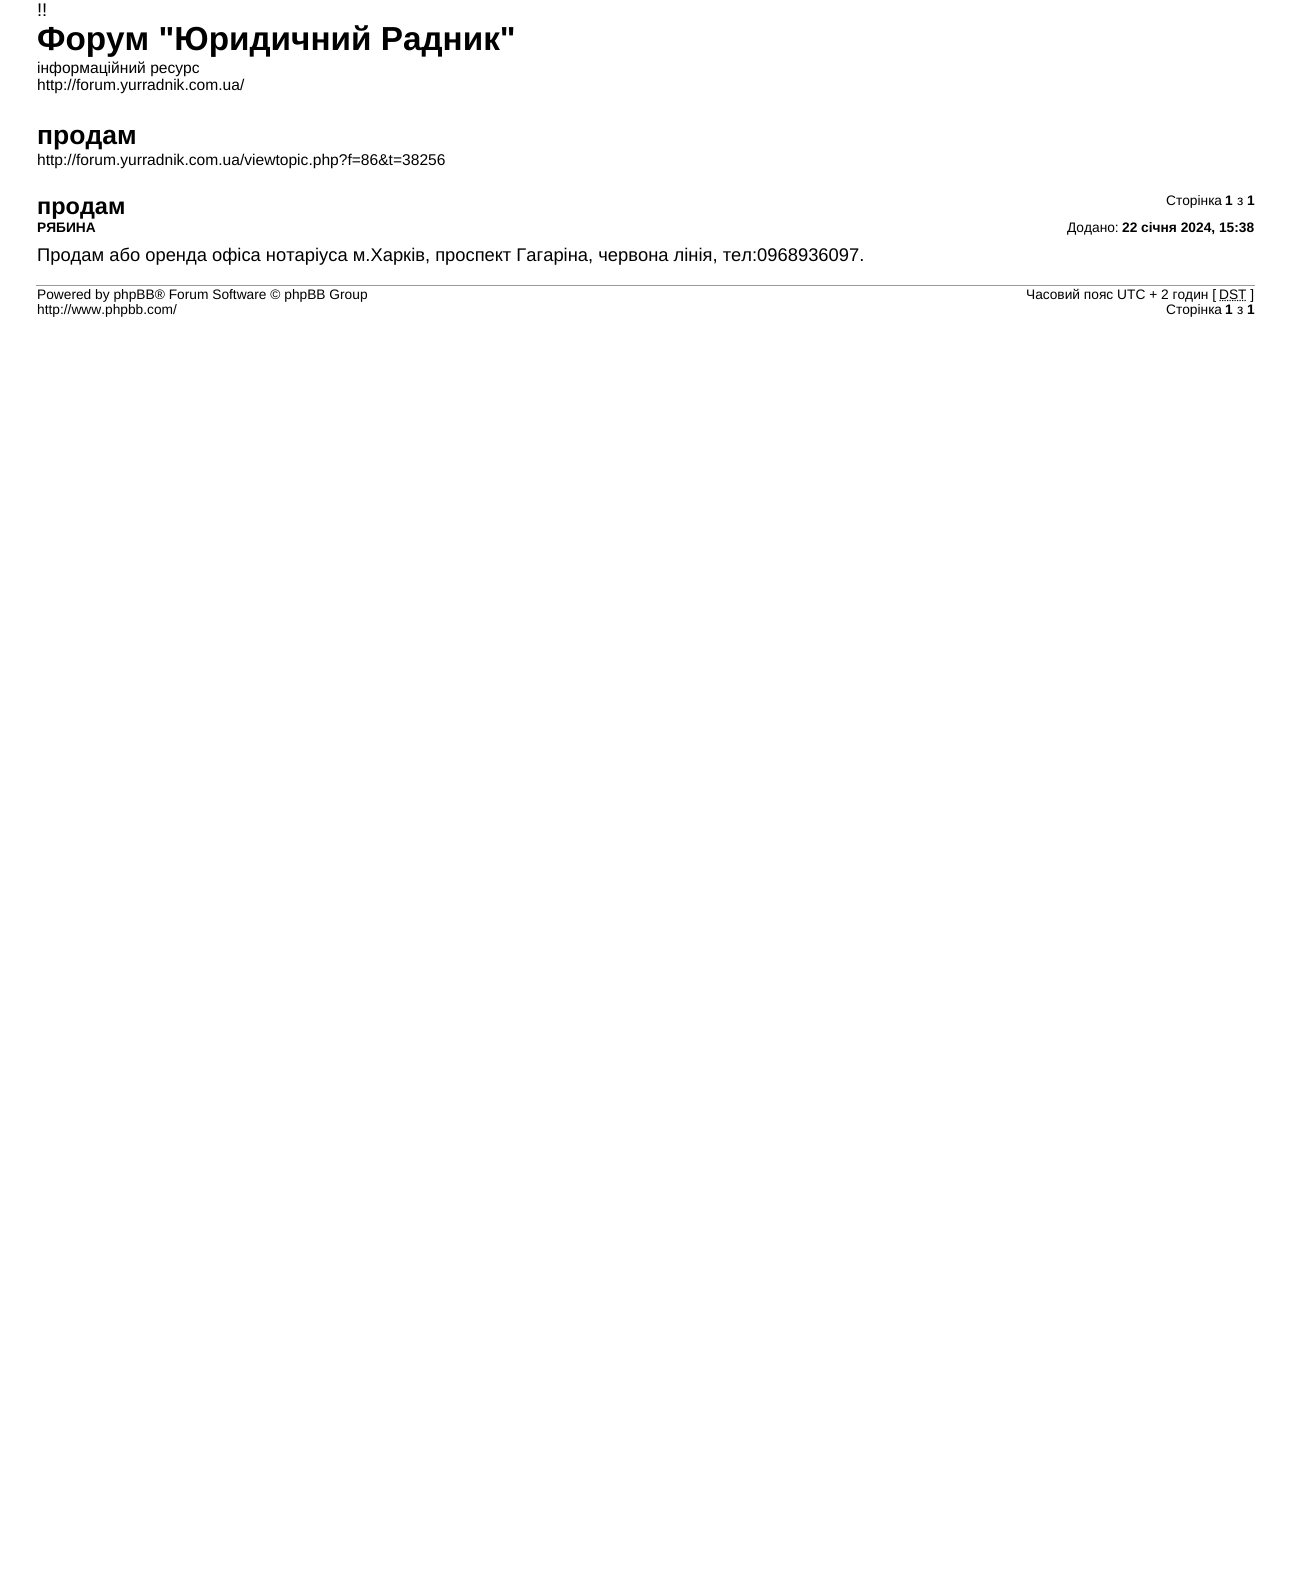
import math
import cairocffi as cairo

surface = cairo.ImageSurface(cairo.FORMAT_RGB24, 1291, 1573)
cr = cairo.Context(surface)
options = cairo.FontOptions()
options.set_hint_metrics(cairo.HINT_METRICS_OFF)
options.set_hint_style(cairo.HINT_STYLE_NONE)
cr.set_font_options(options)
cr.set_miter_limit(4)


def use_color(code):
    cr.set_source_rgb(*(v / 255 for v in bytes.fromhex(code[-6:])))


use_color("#ffffff")
cr.paint()
cr.select_font_face("Liberation Sans")
cr.set_font_size(18.35)
use_color("#000000")
cr.move_to(37, 16)
cr.show_text("!!")
cr.select_font_face("Liberation Sans", cairo.FONT_SLANT_NORMAL, cairo.FONT_WEIGHT_BOLD)
cr.set_font_size(33.3)
cr.move_to(37, 50)
cr.show_text("Форум \"Юридичний Радник\"")
cr.select_font_face("Liberation Sans")
cr.set_font_size(15.6)
cr.move_to(37, 73)
cr.show_text("інформаційний ресурс")
cr.move_to(37, 90)
cr.show_text("http://forum.yurradnik.com.ua/")
cr.select_font_face("Liberation Sans", cairo.FONT_SLANT_NORMAL, cairo.FONT_WEIGHT_BOLD)
cr.set_font_size(26.5)
cr.move_to(37, 144)
cr.show_text("продам")
cr.select_font_face("Liberation Sans")
cr.set_font_size(15.6)
cr.move_to(37, 165)
cr.show_text("http://forum.yurradnik.com.ua/viewtopic.php?f=86&t=38256")
cr.set_font_size(13.75)
cr.move_to(1166, 205)
cr.show_text("Сторінка")
cr.select_font_face("Liberation Sans", cairo.FONT_SLANT_NORMAL, cairo.FONT_WEIGHT_BOLD)
cr.move_to(1225, 205)
cr.show_text("1")
cr.select_font_face("Liberation Sans")
cr.move_to(1237, 205)
cr.show_text("з")
cr.select_font_face("Liberation Sans", cairo.FONT_SLANT_NORMAL, cairo.FONT_WEIGHT_BOLD)
cr.move_to(1247, 205)
cr.show_text("1")
cr.set_font_size(23.5)
cr.move_to(37, 214)
cr.show_text("продам")
cr.set_font_size(13.75)
cr.move_to(37, 232)
cr.show_text("РЯБИНА")
cr.select_font_face("Liberation Sans")
cr.move_to(1067, 232)
cr.show_text("Додано:")
cr.select_font_face("Liberation Sans", cairo.FONT_SLANT_NORMAL, cairo.FONT_WEIGHT_BOLD)
cr.move_to(1122, 232)
cr.show_text("22 січня 2024, 15:38")
cr.select_font_face("Liberation Sans")
cr.set_font_size(18.35)
cr.move_to(37, 261)
cr.show_text("Продам або оренда офіса нотаріуса м.Харків, проспект Гагаріна, червона лінія, тел:0968936097.")
use_color("#999999")
cr.rectangle(36, 285, 1219, 1)
cr.fill()
cr.set_font_size(13.75)
use_color("#000000")
cr.move_to(37, 299)
cr.show_text("Powered by phpBB® Forum Software © phpBB Group")
cr.move_to(37, 314)
cr.show_text("http://www.phpbb.com/")
cr.move_to(1026, 299)
cr.show_text("Часовий пояс UTC + 2 годин [")
cr.new_path()
cr.move_to(1219.5, 300.5)
cr.line_to(1247, 300.5)
cr.set_line_width(1.2)
cr.set_dash([1.25, 1.25])
cr.stroke()
cr.move_to(1219, 299)
cr.show_text("DST ]")
cr.move_to(1166, 314)
cr.show_text("Сторінка")
cr.select_font_face("Liberation Sans", cairo.FONT_SLANT_NORMAL, cairo.FONT_WEIGHT_BOLD)
cr.move_to(1225, 314)
cr.show_text("1")
cr.select_font_face("Liberation Sans")
cr.move_to(1237, 314)
cr.show_text("з")
cr.select_font_face("Liberation Sans", cairo.FONT_SLANT_NORMAL, cairo.FONT_WEIGHT_BOLD)
cr.move_to(1247, 314)
cr.show_text("1")
surface.write_to_png("result.png")
